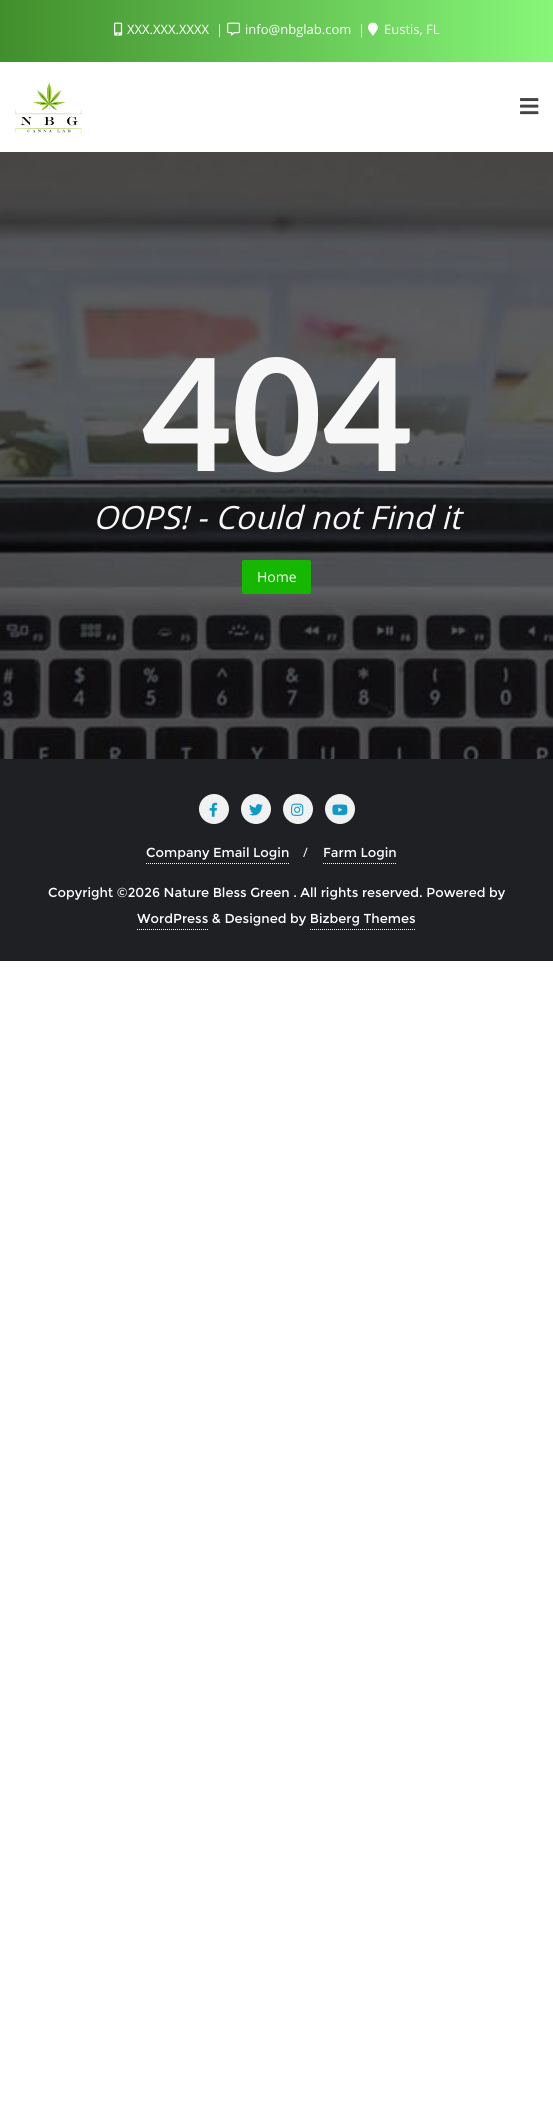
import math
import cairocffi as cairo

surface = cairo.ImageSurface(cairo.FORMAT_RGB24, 553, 2120)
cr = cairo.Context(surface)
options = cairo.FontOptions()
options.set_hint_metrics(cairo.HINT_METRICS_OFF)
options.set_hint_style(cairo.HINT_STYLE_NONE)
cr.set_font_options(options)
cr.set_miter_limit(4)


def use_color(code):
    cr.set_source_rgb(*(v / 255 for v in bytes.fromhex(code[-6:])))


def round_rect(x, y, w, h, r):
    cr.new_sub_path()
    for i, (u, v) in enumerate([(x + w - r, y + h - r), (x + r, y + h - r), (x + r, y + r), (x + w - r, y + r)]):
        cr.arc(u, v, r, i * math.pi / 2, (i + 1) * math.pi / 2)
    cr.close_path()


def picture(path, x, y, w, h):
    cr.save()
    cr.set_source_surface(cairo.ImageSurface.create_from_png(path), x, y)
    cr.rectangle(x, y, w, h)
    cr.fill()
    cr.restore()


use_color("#ffffff")
cr.paint()
gradient = cairo.LinearGradient(0, 31, 553, 31)
gradient.add_color_stop_rgba(0, 0.255, 0.557, 0.173, 1)
gradient.add_color_stop_rgba(1, 0.529, 0.969, 0.475, 1)
cr.set_source(gradient)
cr.rectangle(0, 0, 553, 62)
cr.fill()
picture("img1.png", 114, 22, 9, 14)
cr.select_font_face("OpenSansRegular")
cr.set_font_size(13)
use_color("#ffffff")
cr.move_to(127, 34)
cr.show_text("XXX.XXX.XXXX")
cr.move_to(216, 34)
cr.show_text("|")
picture("img2.png", 227, 22, 13, 14)
cr.move_to(245, 34)
cr.show_text("info@nbglab.com")
cr.move_to(358, 34)
cr.show_text("|")
picture("img3.png", 368, 22, 10, 14)
cr.move_to(384, 34)
cr.show_text("Eustis, FL")
picture("img4.png", 15, 82, 67, 51)
picture("img5.png", 520, 98, 19, 17)
picture("img6.png", 0, 152, 553, 607)
cr.select_font_face("Lato", cairo.FONT_SLANT_NORMAL, cairo.FONT_WEIGHT_BOLD)
cr.set_font_size(156)
use_color("#f7f7f7")
cr.move_to(141, 471)
cr.show_text("404")
cr.select_font_face("OpenSansRegular", cairo.FONT_SLANT_ITALIC)
cr.set_font_size(32)
cr.move_to(93, 529)
cr.show_text("OOPS! - Could not Find it")
use_color("#15b700")
round_rect(242, 560, 69, 34, 2)
cr.fill()
cr.select_font_face("OpenSansRegular")
cr.set_font_size(14)
use_color("#ffffff")
cr.move_to(257, 582)
cr.show_text("Home")
use_color("#1f2024")
cr.rectangle(0, 759, 553, 202)
cr.fill()
use_color("#f1f1f1")
cr.arc(214, 809, 15, 0, 2 * math.pi)
cr.fill()
picture("img7.png", 209, 802, 9, 15)
cr.arc(256, 809, 15, 0, 2 * math.pi)
cr.fill()
picture("img8.png", 249, 804, 14, 12)
cr.arc(298, 809, 15, 0, 2 * math.pi)
cr.fill()
picture("img9.png", 291, 803, 13, 13)
cr.arc(340, 809, 15, 0, 2 * math.pi)
cr.fill()
picture("img10.png", 332, 804, 16, 11)
cr.new_path()
cr.move_to(146, 863.5)
cr.line_to(290, 863.5)
use_color("#ffffff")
cr.set_line_width(1)
cr.set_dash([1, 1])
cr.stroke()
cr.select_font_face("Montserrat")
cr.set_font_size(13)
cr.move_to(146, 857)
cr.show_text("Company Email Login")
cr.select_font_face("OpenSansRegular")
cr.move_to(303, 857)
cr.show_text("/")
cr.new_path()
cr.move_to(323, 863.5)
cr.line_to(397, 863.5)
cr.stroke()
cr.select_font_face("Montserrat")
cr.move_to(323, 857)
cr.show_text("Farm Login")
cr.move_to(48, 897)
cr.show_text("Copyright ©2026 Nature Bless Green . All rights reserved. Powered by")
cr.new_path()
cr.move_to(137, 929.5)
cr.line_to(208, 929.5)
cr.stroke()
cr.move_to(137, 923)
cr.show_text("WordPress & Designed by Bizberg Themes")
cr.new_path()
cr.move_to(310, 929.5)
cr.line_to(416, 929.5)
cr.stroke()
surface.write_to_png("result.png")
